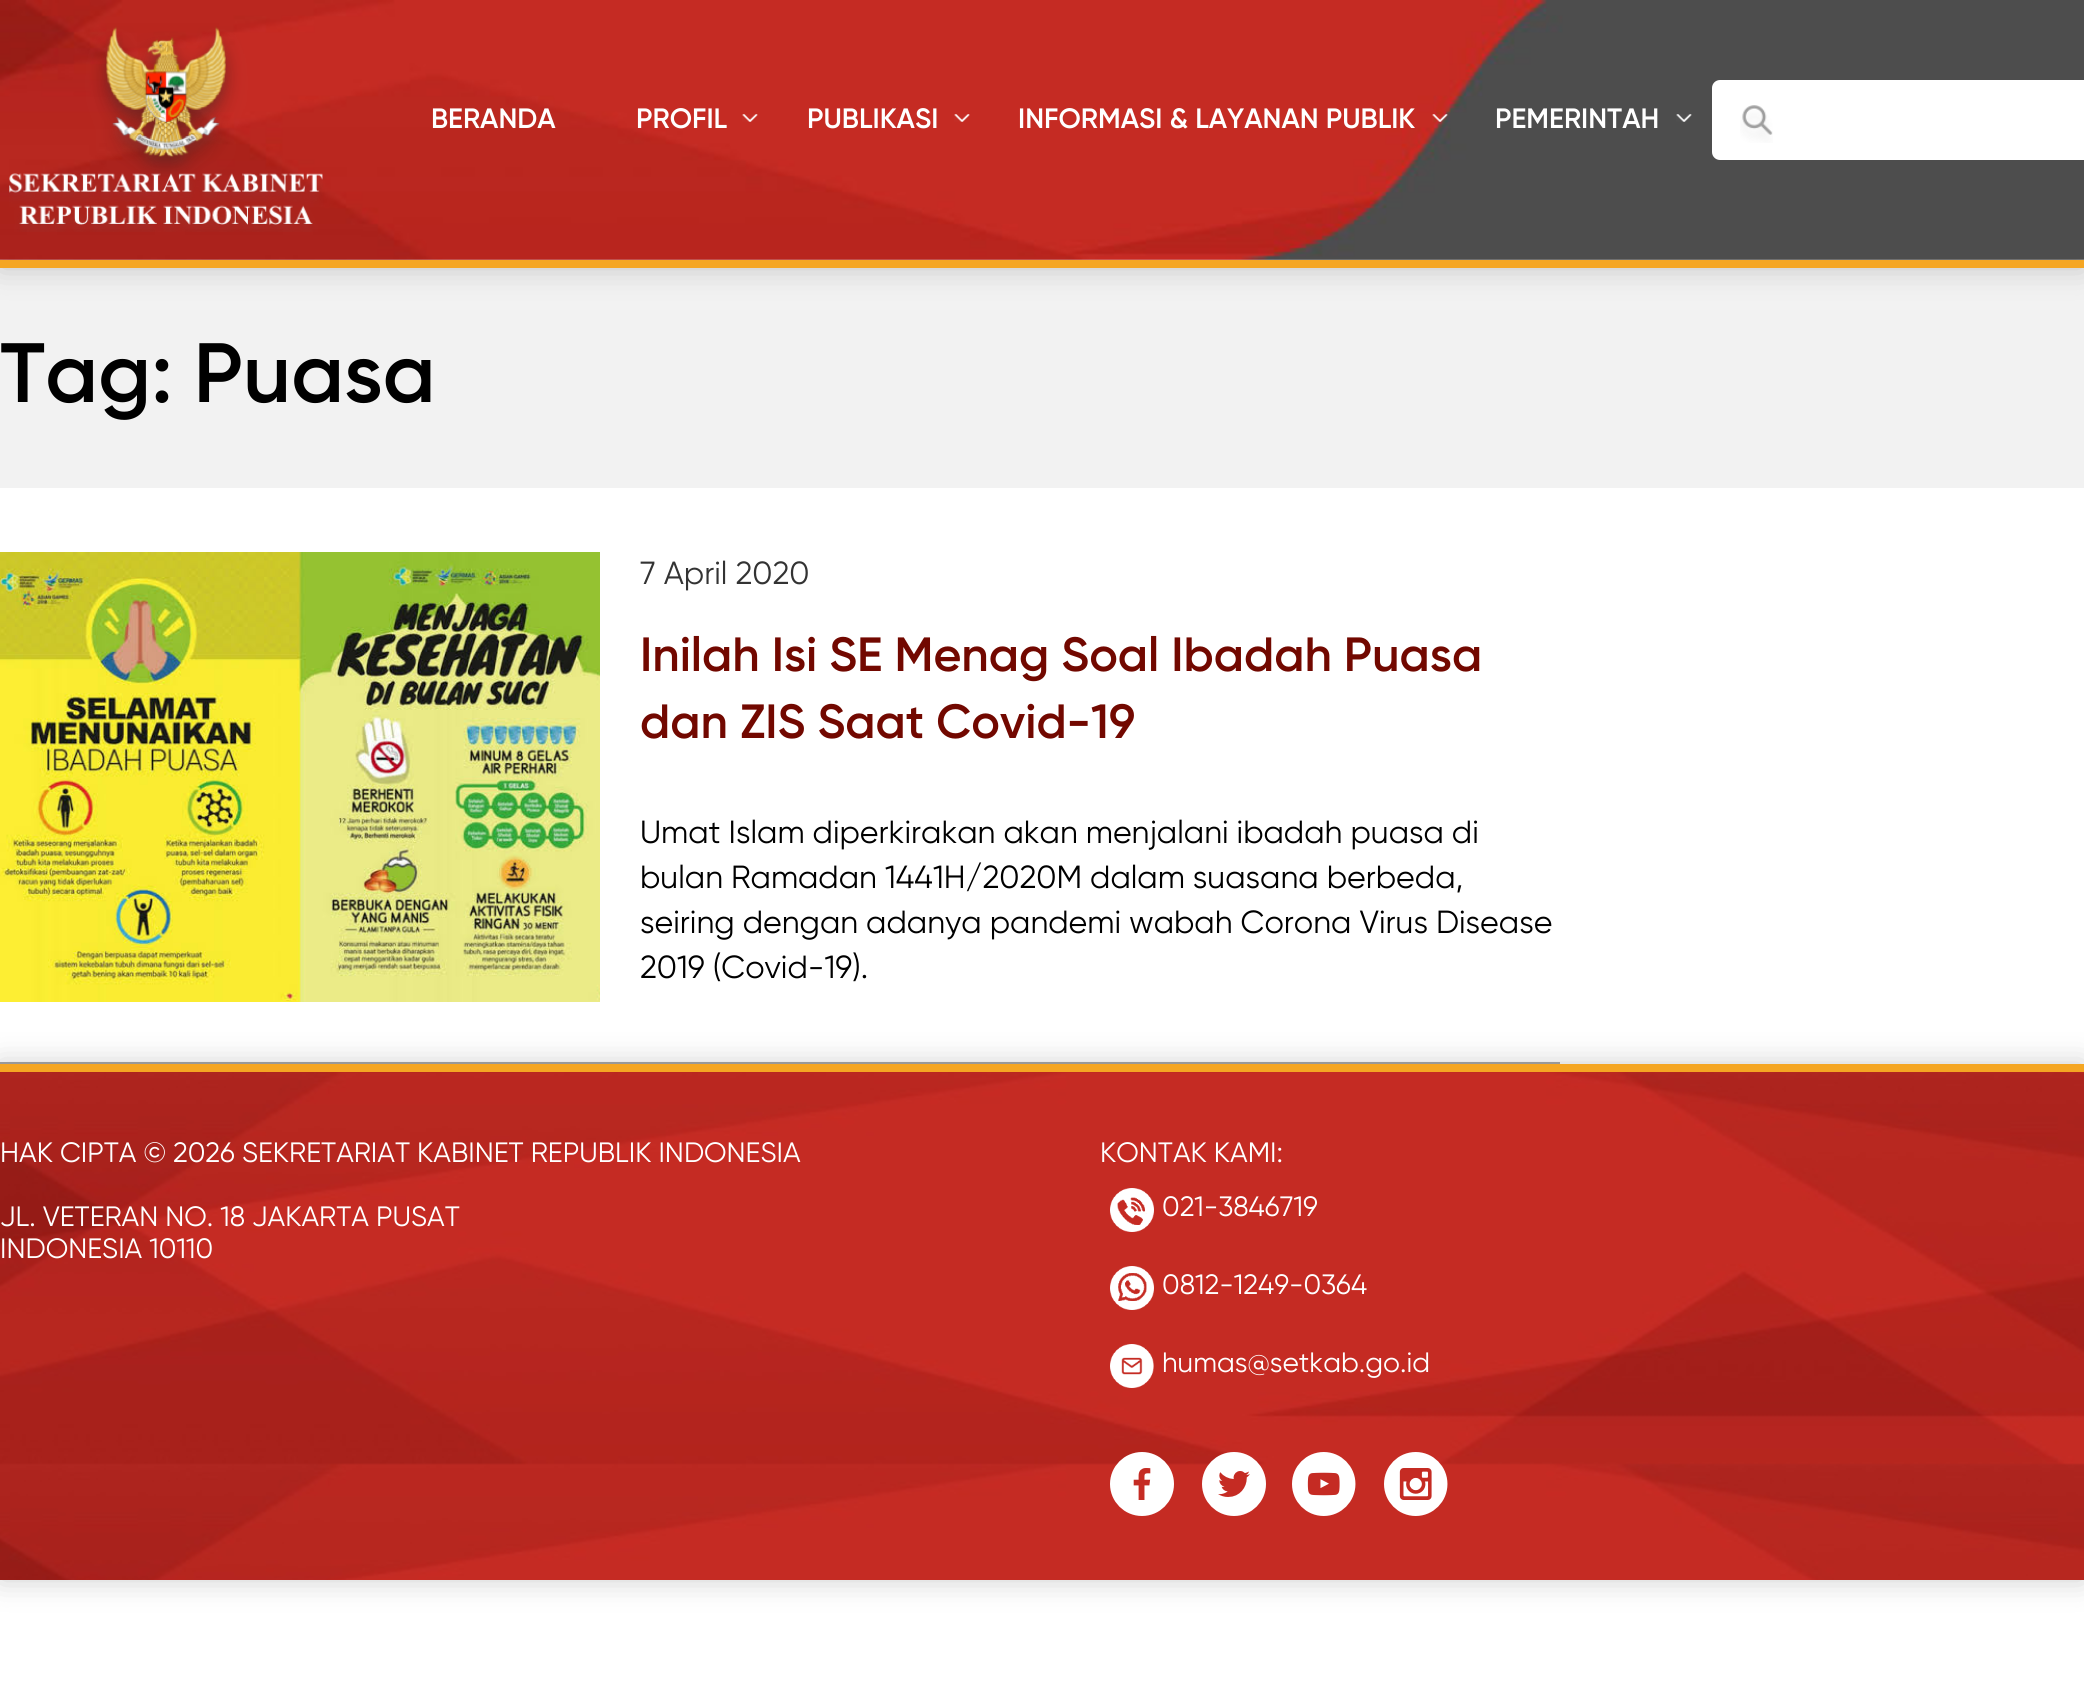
import math
import cairocffi as cairo

surface = cairo.ImageSurface(cairo.FORMAT_RGB24, 2084, 1698)
cr = cairo.Context(surface)
options = cairo.FontOptions()
options.set_hint_metrics(cairo.HINT_METRICS_OFF)
options.set_hint_style(cairo.HINT_STYLE_NONE)
cr.set_font_options(options)
cr.set_miter_limit(4)


def use_color(code):
    cr.set_source_rgb(*(v / 255 for v in bytes.fromhex(code[-6:])))


def round_rect(x, y, w, h, r):
    cr.new_sub_path()
    for i, (u, v) in enumerate([(x + w - r, y + h - r), (x + r, y + h - r), (x + r, y + r), (x + w - r, y + r)]):
        cr.arc(u, v, r, i * math.pi / 2, (i + 1) * math.pi / 2)
    cr.close_path()


def shadow(x, y, w, h, r, blur, alpha):
    cr.push_group_with_content(cairo.CONTENT_ALPHA)
    cr.set_operator(cairo.OPERATOR_SOURCE)
    for i in range(15, -16, -2):
        e = blur * i / 6
        if min(w, h) + 2 * e > 0:
            cr.set_source_rgba(0, 0, 0, alpha * math.erfc((i - 1) / 8.5) / 2)
            round_rect(x - e, y - e, w + 2 * e, h + 2 * e, max(0, min(r + e + blur * .6, min(w, h) / 2 + e)))
            cr.fill()
    cr.mask(cr.pop_group())


def picture(path, x, y, w, h):
    cr.save()
    cr.set_source_surface(cairo.ImageSurface.create_from_png(path), x, y)
    cr.rectangle(x, y, w, h)
    cr.fill()
    cr.restore()


use_color("#ffffff")
cr.paint()
use_color("#f2f2f2")
cr.rectangle(0, 268, 2084, 220)
cr.fill()
use_color("#000000")
shadow(0, 0, 2084, 268, 0, 15, 0.2)
picture("img1.png", 0, 0, 2084, 260)
use_color("#f5a623")
cr.rectangle(0, 260, 2084, 8)
cr.fill()
picture("img2.png", 9, 26, 314, 206)
cr.select_font_face("Gilroy SemiBold")
cr.set_font_size(28)
use_color("#ffffff")
cr.move_to(431, 128)
cr.show_text("BERANDA")
picture("img3.png", 742, 114, 16, 8)
cr.move_to(636, 128)
cr.show_text("PROFIL")
picture("img3.png", 954, 114, 16, 8)
cr.move_to(807, 128)
cr.show_text("PUBLIKASI")
picture("img4.png", 1432, 114, 16, 8)
cr.move_to(1018, 128)
cr.show_text("INFORMASI & LAYANAN PUBLIK")
picture("img5.png", 1676, 114, 16, 8)
cr.move_to(1495, 128)
cr.show_text("PEMERINTAH")
round_rect(1712, 80, 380, 80, 8)
cr.fill()
picture("img6.png", 1740, 105, 33, 38)
cr.set_font_size(84)
use_color("#000000")
cr.move_to(0, 402)
cr.show_text("Tag: Puasa")
use_color("#000000")
shadow(0, 1064, 2084, 516, 0, 15, 0.2)
use_color("#999999")
cr.rectangle(0, 1062, 1560, 2)
cr.fill()
picture("img7.png", 0, 552, 600, 450)
cr.select_font_face("Gilroy")
cr.set_font_size(32)
use_color("#333333")
cr.move_to(640, 584)
cr.show_text("7 April 2020")
cr.select_font_face("Gilroy SemiBold")
cr.set_font_size(48)
use_color("#720800")
cr.move_to(640, 671)
cr.show_text("Inilah Isi SE Menag Soal Ibadah Puasa")
cr.move_to(640, 738)
cr.show_text("dan ZIS Saat Covid-19")
cr.select_font_face("Gilroy")
cr.set_font_size(32)
use_color("#000000")
cr.move_to(640, 843)
cr.show_text("Umat Islam diperkirakan akan menjalani ibadah puasa di")
cr.move_to(640, 888)
cr.show_text("bulan Ramadan 1441H/2020M dalam suasana berbeda,")
cr.move_to(640, 933)
cr.show_text("seiring dengan adanya pandemi wabah Corona Virus Disease")
cr.move_to(640, 978)
cr.show_text("2019 (Covid-19).")
picture("img8.png", 0, 1072, 2084, 508)
use_color("#f5a623")
cr.rectangle(0, 1064, 2084, 8)
cr.fill()
cr.set_font_size(28)
use_color("#ffffff")
cr.move_to(0, 1162)
cr.show_text("HAK CIPTA © 2026 SEKRETARIAT KABINET REPUBLIK INDONESIA")
cr.move_to(0, 1226)
cr.show_text("JL. VETERAN NO. 18 JAKARTA PUSAT")
cr.move_to(0, 1258)
cr.show_text("INDONESIA 10110")
cr.move_to(1100, 1162)
cr.show_text("KONTAK KAMI:")
picture("img9.png", 1110, 1188, 44, 44)
cr.move_to(1162, 1216)
cr.show_text("021-3846719")
picture("img10.png", 1110, 1266, 44, 44)
cr.move_to(1162, 1294)
cr.show_text("0812-1249-0364")
picture("img11.png", 1110, 1344, 44, 44)
cr.move_to(1162, 1372)
cr.show_text("humas@setkab.go.id")
picture("img12.png", 1110, 1452, 64, 64)
picture("img13.png", 1202, 1452, 64, 64)
picture("img14.png", 1292, 1452, 64, 64)
picture("img15.png", 1384, 1452, 64, 64)
surface.write_to_png("result.png")
